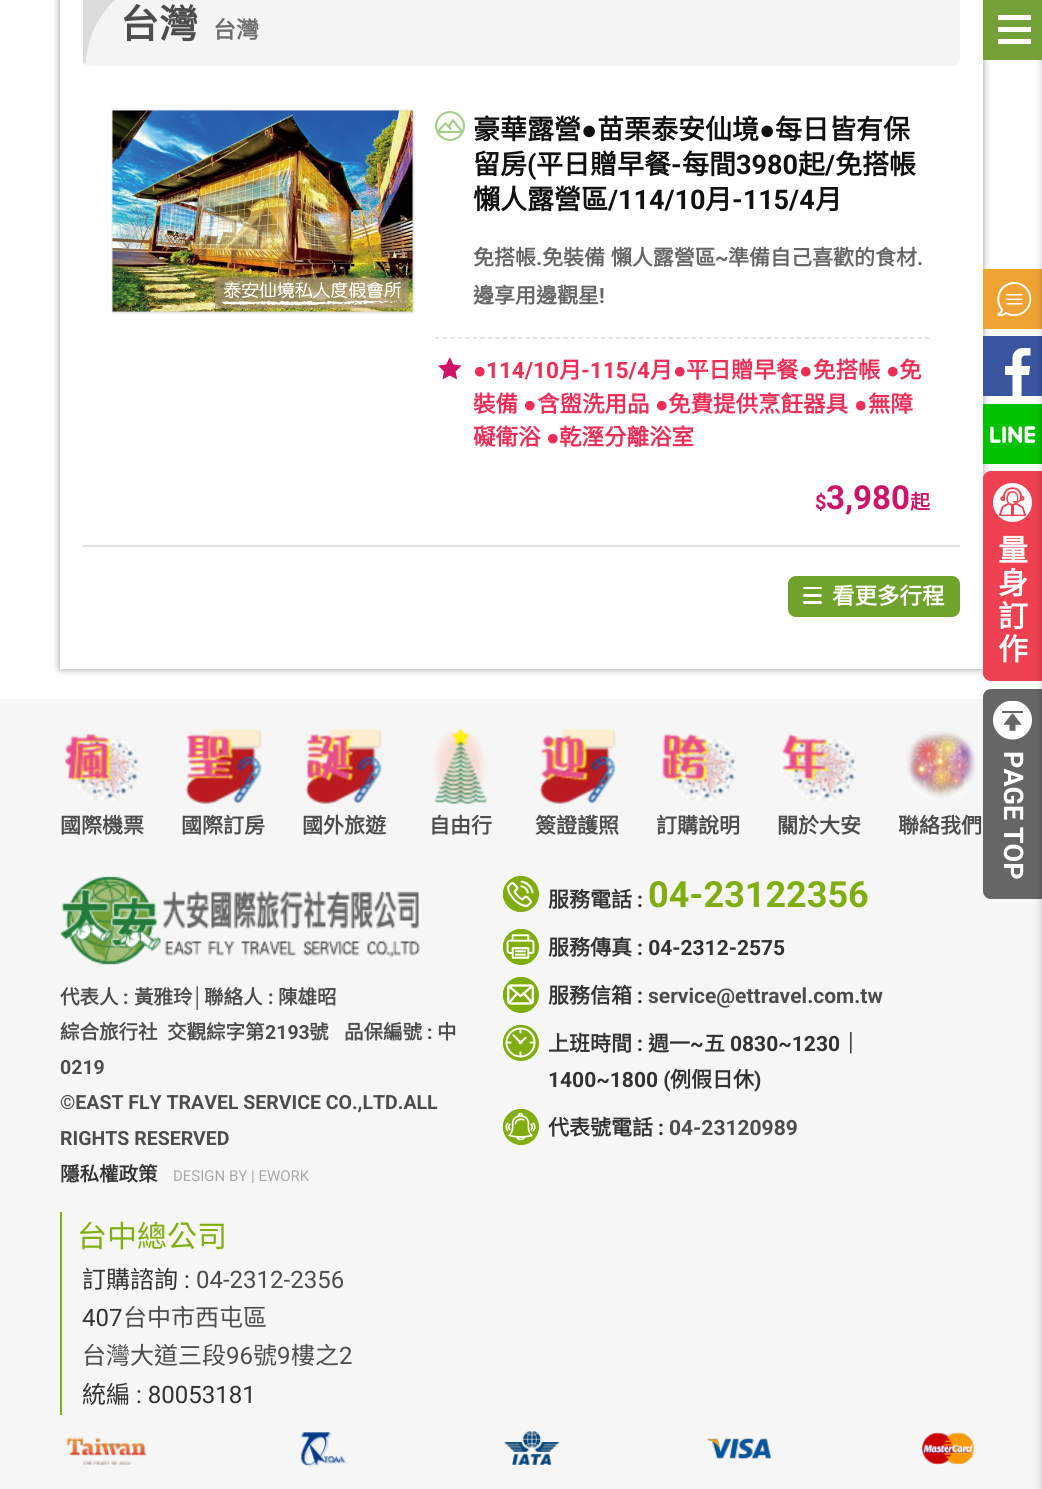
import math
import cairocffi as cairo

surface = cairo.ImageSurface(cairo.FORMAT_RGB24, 1042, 1489)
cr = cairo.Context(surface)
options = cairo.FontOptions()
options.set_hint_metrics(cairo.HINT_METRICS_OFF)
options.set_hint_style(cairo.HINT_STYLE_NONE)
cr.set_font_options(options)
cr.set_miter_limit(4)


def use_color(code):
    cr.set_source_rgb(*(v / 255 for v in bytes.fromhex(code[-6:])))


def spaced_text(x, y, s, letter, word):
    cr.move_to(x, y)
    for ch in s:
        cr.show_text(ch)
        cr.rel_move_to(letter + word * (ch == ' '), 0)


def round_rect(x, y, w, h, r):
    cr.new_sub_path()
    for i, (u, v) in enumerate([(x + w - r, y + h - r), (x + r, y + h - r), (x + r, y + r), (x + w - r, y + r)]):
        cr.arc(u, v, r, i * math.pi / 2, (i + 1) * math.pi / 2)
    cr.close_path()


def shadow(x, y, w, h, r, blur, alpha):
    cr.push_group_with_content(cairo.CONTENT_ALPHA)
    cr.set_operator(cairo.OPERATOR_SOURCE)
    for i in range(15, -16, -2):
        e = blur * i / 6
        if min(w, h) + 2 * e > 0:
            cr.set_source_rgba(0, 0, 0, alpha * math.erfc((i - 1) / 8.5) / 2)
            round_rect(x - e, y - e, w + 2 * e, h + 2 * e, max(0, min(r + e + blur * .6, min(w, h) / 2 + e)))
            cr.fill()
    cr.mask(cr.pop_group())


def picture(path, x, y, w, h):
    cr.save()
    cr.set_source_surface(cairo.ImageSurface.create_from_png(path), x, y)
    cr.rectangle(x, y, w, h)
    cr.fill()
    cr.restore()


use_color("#ffffff")
cr.paint()
cr.save()
cr.set_fill_rule(cairo.FILL_RULE_EVEN_ODD)
cr.new_path()
cr.move_to(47, 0)
cr.line_to(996, 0)
cr.line_to(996, 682)
cr.line_to(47, 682)
cr.close_path()
cr.move_to(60, -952)
cr.line_to(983, -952)
cr.line_to(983, 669)
cr.line_to(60, 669)
cr.close_path()
cr.clip()
use_color("#000000")
shadow(60, -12, 923, 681, 0, 4, 0.4)
cr.restore()
use_color("#efa335")
cr.rectangle(983, 269, 59, 60)
cr.fill()
picture("img5.png", 997, 282, 35, 35)
use_color("#3a559f")
cr.rectangle(983, 336, 59, 60)
cr.fill()
picture("img6.png", 1005, 348, 26, 48)
use_color("#00c200")
cr.rectangle(983, 404, 59, 60)
cr.fill()
picture("img7.png", 990, 426, 46, 17)
use_color("#f04152")
cr.new_path()
cr.move_to(991, 471)
cr.line_to(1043, 471)
cr.line_to(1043, 681)
cr.line_to(991, 681)
cr.curve_to(986.5, 681, 983, 677.5, 983, 673)
cr.line_to(983, 479)
cr.curve_to(983, 474.5, 986.5, 471, 991, 471)
cr.close_path()
cr.fill()
picture("img8.png", 993, 483, 39, 39)
use_color("#f6f6f6")
cr.rectangle(0, 699, 1042, 790)
cr.fill()
use_color("#666666")
cr.new_path()
cr.move_to(991, 689)
cr.line_to(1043, 689)
cr.line_to(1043, 899)
cr.line_to(991, 899)
cr.curve_to(986.5, 899, 983, 895.5, 983, 891)
cr.line_to(983, 697)
cr.curve_to(983, 692.5, 986.5, 689, 991, 689)
cr.close_path()
cr.fill()
picture("img9.png", 993, 701, 39, 39)
use_color("#000000")
shadow(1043, 0, 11, 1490, 0, 4, 0.3)
use_color("#73a137")
cr.rectangle(983, 0, 59, 60)
cr.fill()
use_color("#ffffff")
cr.rectangle(998, 15, 33, 5)
cr.fill()
cr.rectangle(998, 27, 33, 5)
cr.fill()
cr.rectangle(998, 39, 33, 5)
cr.fill()
use_color("#f4f4f4")
round_rect(83, -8, 877, 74, 8)
cr.fill()
picture("img1.png", 83, 0, 32, 65)
cr.select_font_face("Noto Sans CJK TC", cairo.FONT_SLANT_NORMAL, cairo.FONT_WEIGHT_BOLD)
cr.set_font_size(39)
use_color("#4d4d4d")
cr.move_to(120, 38)
cr.show_text("台灣")
cr.set_font_size(23)
use_color("#6e6e6e")
cr.move_to(213, 38)
cr.show_text("台灣")
use_color("#e2e2e2")
cr.rectangle(83, 545, 877, 2)
cr.fill()
use_color("#000000")
shadow(113, 111, 300, 201, 0, 1.5, 0.25)
picture("img2.png", 112, 110, 301, 202)
picture("img3.png", 435, 111, 30, 30)
cr.set_font_size(27)
use_color("#111111")
cr.move_to(473, 139)
cr.show_text("豪華露營")
cr.select_font_face("Liberation Sans", cairo.FONT_SLANT_NORMAL, cairo.FONT_WEIGHT_BOLD)
cr.move_to(581, 139)
cr.show_text("●")
cr.select_font_face("Noto Sans CJK TC", cairo.FONT_SLANT_NORMAL, cairo.FONT_WEIGHT_BOLD)
cr.move_to(597, 139)
cr.show_text("苗栗泰安仙境")
cr.select_font_face("Liberation Sans", cairo.FONT_SLANT_NORMAL, cairo.FONT_WEIGHT_BOLD)
cr.move_to(759, 139)
cr.show_text("●")
cr.select_font_face("Noto Sans CJK TC", cairo.FONT_SLANT_NORMAL, cairo.FONT_WEIGHT_BOLD)
cr.move_to(775, 139)
cr.show_text("每日皆有保")
cr.move_to(473, 174)
cr.show_text("留房")
cr.select_font_face("Roboto", cairo.FONT_SLANT_NORMAL, cairo.FONT_WEIGHT_BOLD)
cr.move_to(527, 174)
cr.show_text("(")
cr.select_font_face("Noto Sans CJK TC", cairo.FONT_SLANT_NORMAL, cairo.FONT_WEIGHT_BOLD)
cr.move_to(536, 174)
cr.show_text("平日贈早餐")
cr.select_font_face("Roboto", cairo.FONT_SLANT_NORMAL, cairo.FONT_WEIGHT_BOLD)
cr.move_to(671, 174)
cr.show_text("-")
cr.select_font_face("Noto Sans CJK TC", cairo.FONT_SLANT_NORMAL, cairo.FONT_WEIGHT_BOLD)
cr.move_to(682, 174)
cr.show_text("每間")
cr.select_font_face("Roboto", cairo.FONT_SLANT_NORMAL, cairo.FONT_WEIGHT_BOLD)
cr.move_to(736, 174)
cr.show_text("3980")
cr.select_font_face("Noto Sans CJK TC", cairo.FONT_SLANT_NORMAL, cairo.FONT_WEIGHT_BOLD)
cr.move_to(798, 174)
cr.show_text("起")
cr.select_font_face("Roboto", cairo.FONT_SLANT_NORMAL, cairo.FONT_WEIGHT_BOLD)
cr.move_to(825, 174)
cr.show_text("/")
cr.select_font_face("Noto Sans CJK TC", cairo.FONT_SLANT_NORMAL, cairo.FONT_WEIGHT_BOLD)
cr.move_to(835, 174)
cr.show_text("免搭帳")
cr.move_to(473, 209)
cr.show_text("懶人露營區")
cr.select_font_face("Roboto", cairo.FONT_SLANT_NORMAL, cairo.FONT_WEIGHT_BOLD)
cr.move_to(608, 209)
cr.show_text("/114/10")
cr.select_font_face("Noto Sans CJK TC", cairo.FONT_SLANT_NORMAL, cairo.FONT_WEIGHT_BOLD)
cr.move_to(705, 209)
cr.show_text("月")
cr.select_font_face("Roboto", cairo.FONT_SLANT_NORMAL, cairo.FONT_WEIGHT_BOLD)
cr.move_to(732, 209)
cr.show_text("-115/4")
cr.select_font_face("Noto Sans CJK TC", cairo.FONT_SLANT_NORMAL, cairo.FONT_WEIGHT_BOLD)
cr.move_to(815, 209)
cr.show_text("月")
cr.set_font_size(21)
use_color("#666666")
cr.move_to(473, 265)
cr.show_text("免搭帳")
spaced_text(542, 265, "免裝備 懶人露營區", 0, 1)
cr.select_font_face("Roboto", cairo.FONT_SLANT_NORMAL, cairo.FONT_WEIGHT_BOLD)
cr.move_to(715, 265)
cr.show_text("~")
cr.select_font_face("Noto Sans CJK TC", cairo.FONT_SLANT_NORMAL, cairo.FONT_WEIGHT_BOLD)
cr.move_to(728, 265)
cr.show_text("準備自己喜歡的食材")
cr.select_font_face("Roboto", cairo.FONT_SLANT_NORMAL, cairo.FONT_WEIGHT_BOLD)
cr.move_to(536, 265)
cr.show_text(".")
cr.move_to(917, 265)
cr.show_text(".")
cr.select_font_face("Noto Sans CJK TC", cairo.FONT_SLANT_NORMAL, cairo.FONT_WEIGHT_BOLD)
cr.move_to(473, 303)
cr.show_text("邊享用邊觀星")
cr.select_font_face("Roboto", cairo.FONT_SLANT_NORMAL, cairo.FONT_WEIGHT_BOLD)
cr.move_to(599, 303)
cr.show_text("!")
cr.new_path()
cr.move_to(435, 338)
cr.line_to(930, 338)
use_color("#dddddd")
cr.set_line_width(1.5)
cr.set_dash([4.5, 3.04])
cr.stroke()
picture("img4.png", 438, 357, 24, 23)
cr.select_font_face("Liberation Sans", cairo.FONT_SLANT_NORMAL, cairo.FONT_WEIGHT_BOLD)
cr.set_font_size(22.5)
use_color("#ef2e57")
cr.move_to(473, 378)
cr.show_text("●")
cr.select_font_face("Roboto", cairo.FONT_SLANT_NORMAL, cairo.FONT_WEIGHT_BOLD)
cr.move_to(486, 378)
cr.show_text("114/10")
cr.select_font_face("Noto Sans CJK TC", cairo.FONT_SLANT_NORMAL, cairo.FONT_WEIGHT_BOLD)
cr.move_to(559, 378)
cr.show_text("月")
cr.select_font_face("Roboto", cairo.FONT_SLANT_NORMAL, cairo.FONT_WEIGHT_BOLD)
cr.move_to(581, 378)
cr.show_text("-115/4")
cr.select_font_face("Noto Sans CJK TC", cairo.FONT_SLANT_NORMAL, cairo.FONT_WEIGHT_BOLD)
cr.move_to(650, 378)
cr.show_text("月")
cr.select_font_face("Liberation Sans", cairo.FONT_SLANT_NORMAL, cairo.FONT_WEIGHT_BOLD)
cr.move_to(673, 378)
cr.show_text("●")
cr.select_font_face("Noto Sans CJK TC", cairo.FONT_SLANT_NORMAL, cairo.FONT_WEIGHT_BOLD)
cr.move_to(686, 378)
cr.show_text("平日贈早餐")
cr.select_font_face("Liberation Sans", cairo.FONT_SLANT_NORMAL, cairo.FONT_WEIGHT_BOLD)
cr.move_to(799, 378)
cr.show_text("●")
cr.select_font_face("Noto Sans CJK TC", cairo.FONT_SLANT_NORMAL, cairo.FONT_WEIGHT_BOLD)
cr.move_to(813, 378)
cr.show_text("免搭帳")
cr.select_font_face("Liberation Sans", cairo.FONT_SLANT_NORMAL, cairo.FONT_WEIGHT_BOLD)
cr.move_to(886, 378)
cr.show_text("●")
cr.select_font_face("Noto Sans CJK TC", cairo.FONT_SLANT_NORMAL, cairo.FONT_WEIGHT_BOLD)
cr.move_to(899, 378)
cr.show_text("免")
cr.move_to(473, 412)
cr.show_text("裝備")
cr.select_font_face("Liberation Sans", cairo.FONT_SLANT_NORMAL, cairo.FONT_WEIGHT_BOLD)
cr.move_to(523, 412)
cr.show_text("●")
cr.select_font_face("Noto Sans CJK TC", cairo.FONT_SLANT_NORMAL, cairo.FONT_WEIGHT_BOLD)
cr.move_to(537, 412)
cr.show_text("含盥洗用品")
cr.select_font_face("Liberation Sans", cairo.FONT_SLANT_NORMAL, cairo.FONT_WEIGHT_BOLD)
cr.move_to(655, 412)
cr.show_text("●")
cr.select_font_face("Noto Sans CJK TC", cairo.FONT_SLANT_NORMAL, cairo.FONT_WEIGHT_BOLD)
cr.move_to(668, 412)
cr.show_text("免費提供烹飪器具")
cr.select_font_face("Liberation Sans", cairo.FONT_SLANT_NORMAL, cairo.FONT_WEIGHT_BOLD)
cr.move_to(854, 412)
cr.show_text("●")
cr.select_font_face("Noto Sans CJK TC", cairo.FONT_SLANT_NORMAL, cairo.FONT_WEIGHT_BOLD)
cr.move_to(868, 412)
cr.show_text("無障")
cr.move_to(473, 445)
cr.show_text("礙衛浴")
cr.select_font_face("Liberation Sans", cairo.FONT_SLANT_NORMAL, cairo.FONT_WEIGHT_BOLD)
cr.move_to(546, 445)
cr.show_text("●")
cr.select_font_face("Noto Sans CJK TC", cairo.FONT_SLANT_NORMAL, cairo.FONT_WEIGHT_BOLD)
cr.move_to(559, 445)
cr.show_text("乾溼分離浴室")
cr.select_font_face("Roboto", cairo.FONT_SLANT_NORMAL, cairo.FONT_WEIGHT_BOLD)
cr.set_font_size(20)
use_color("#ce1469")
cr.move_to(815, 509)
cr.show_text("$")
cr.set_font_size(33)
cr.move_to(826, 509)
cr.show_text("3,980")
cr.select_font_face("Noto Sans CJK TC", cairo.FONT_SLANT_NORMAL, cairo.FONT_WEIGHT_BOLD)
cr.set_font_size(20)
cr.move_to(910, 509)
cr.show_text("起")
use_color("#6fa32c")
round_rect(788, 576, 172, 41, 8)
cr.fill()
use_color("#ffffff")
round_rect(803, 587, 19, 2, 1)
cr.fill()
round_rect(803, 594, 19, 3, 1.5)
cr.fill()
round_rect(803, 601, 19, 3, 1.5)
cr.fill()
cr.set_font_size(22.5)
cr.move_to(832, 604)
cr.show_text("看更多行程")
cr.set_font_size(30)
cr.move_to(998, 561)
cr.show_text("量")
cr.move_to(998, 594)
cr.show_text("身")
cr.move_to(998, 627)
cr.show_text("訂")
cr.move_to(998, 660)
cr.show_text("作")
cr.select_font_face("Roboto", cairo.FONT_SLANT_NORMAL, cairo.FONT_WEIGHT_BOLD)
cr.set_font_size(27)
cr.save()
cr.translate(1004, 751)
cr.rotate(90 * math.pi / 180)
cr.move_to(0, 0)
cr.show_text("PAGE TOP")
cr.restore()
picture("img10.png", 65, 733, 74, 68)
cr.select_font_face("Noto Sans CJK TC", cairo.FONT_SLANT_NORMAL, cairo.FONT_WEIGHT_BOLD)
cr.set_font_size(21)
use_color("#4d4d4d")
cr.move_to(60, 833)
cr.show_text("國際機票")
picture("img11.png", 185, 729, 77, 75)
cr.move_to(181, 833)
cr.show_text("國際訂房")
picture("img12.png", 305, 729, 77, 75)
cr.move_to(302, 833)
cr.show_text("國外旅遊")
picture("img13.png", 433, 729, 55, 75)
cr.move_to(429, 833)
cr.show_text("自由行")
picture("img14.png", 539, 729, 77, 75)
cr.move_to(535, 833)
cr.show_text("簽證護照")
picture("img15.png", 662, 733, 74, 68)
cr.move_to(656, 833)
cr.show_text("訂購說明")
picture("img16.png", 782, 733, 74, 68)
cr.move_to(777, 833)
cr.show_text("關於大安")
picture("img17.png", 906, 731, 70, 67)
cr.move_to(898, 833)
cr.show_text("聯絡我們")
picture("img18.png", 60, 876, 360, 89)
cr.set_font_size(19.5)
cr.move_to(60, 1004)
cr.show_text("代表人")
cr.select_font_face("Roboto", cairo.FONT_SLANT_NORMAL, cairo.FONT_WEIGHT_BOLD)
cr.move_to(123, 1004)
cr.show_text(":")
cr.select_font_face("Noto Sans CJK TC", cairo.FONT_SLANT_NORMAL, cairo.FONT_WEIGHT_BOLD)
cr.move_to(134, 1004)
cr.show_text("黃雅玲")
cr.select_font_face("Liberation Sans", cairo.FONT_SLANT_NORMAL, cairo.FONT_WEIGHT_BOLD)
cr.move_to(192, 1004)
cr.show_text("│")
cr.select_font_face("Noto Sans CJK TC", cairo.FONT_SLANT_NORMAL, cairo.FONT_WEIGHT_BOLD)
cr.move_to(204, 1004)
cr.show_text("聯絡人")
cr.select_font_face("Roboto", cairo.FONT_SLANT_NORMAL, cairo.FONT_WEIGHT_BOLD)
cr.move_to(268, 1004)
cr.show_text(":")
cr.select_font_face("Noto Sans CJK TC", cairo.FONT_SLANT_NORMAL, cairo.FONT_WEIGHT_BOLD)
cr.move_to(278, 1004)
cr.show_text("陳雄昭")
cr.move_to(60, 1039)
cr.show_text("綜合旅行社")
cr.move_to(167, 1039)
cr.show_text("交觀綜字第")
cr.select_font_face("Roboto", cairo.FONT_SLANT_NORMAL, cairo.FONT_WEIGHT_BOLD)
cr.move_to(265, 1039)
cr.show_text("2193")
cr.select_font_face("Noto Sans CJK TC", cairo.FONT_SLANT_NORMAL, cairo.FONT_WEIGHT_BOLD)
cr.move_to(309, 1039)
cr.show_text("號")
cr.move_to(344, 1039)
cr.show_text("品保編號")
cr.select_font_face("Roboto", cairo.FONT_SLANT_NORMAL, cairo.FONT_WEIGHT_BOLD)
cr.move_to(427, 1039)
cr.show_text(":")
cr.select_font_face("Noto Sans CJK TC", cairo.FONT_SLANT_NORMAL, cairo.FONT_WEIGHT_BOLD)
cr.move_to(437, 1039)
cr.show_text("中")
cr.select_font_face("Roboto", cairo.FONT_SLANT_NORMAL, cairo.FONT_WEIGHT_BOLD)
cr.move_to(60, 1074)
cr.show_text("0219")
cr.move_to(60, 1109)
cr.show_text("©EAST FLY TRAVEL SERVICE CO.,LTD.ALL")
cr.move_to(60, 1145)
cr.show_text("RIGHTS RESERVED")
cr.select_font_face("Noto Sans CJK TC", cairo.FONT_SLANT_NORMAL, cairo.FONT_WEIGHT_BOLD)
use_color("#333333")
cr.move_to(60, 1181)
cr.show_text("隱私權政策")
cr.select_font_face("Roboto")
cr.set_font_size(15)
use_color("#aaaaaa")
cr.move_to(173, 1181)
cr.show_text("DESIGN BY | EWORK")
use_color("#7fae0e")
cr.new_path()
cr.arc(521, 894, 18, 0, 2 * math.pi)
cr.fill()
picture("img19.png", 503, 876, 36, 36)
cr.select_font_face("Noto Sans CJK TC", cairo.FONT_SLANT_NORMAL, cairo.FONT_WEIGHT_BOLD)
cr.set_font_size(21)
use_color("#333333")
cr.move_to(548, 907)
cr.show_text("服務電話")
cr.select_font_face("Roboto", cairo.FONT_SLANT_NORMAL, cairo.FONT_WEIGHT_BOLD)
cr.move_to(637, 907)
cr.show_text(":")
cr.set_font_size(36)
use_color("#7fae0e")
cr.move_to(648, 907)
cr.show_text("04-23122356")
cr.new_path()
cr.arc(521, 947, 18, 0, 2 * math.pi)
cr.fill()
picture("img20.png", 503, 929, 36, 36)
cr.select_font_face("Noto Sans CJK TC", cairo.FONT_SLANT_NORMAL, cairo.FONT_WEIGHT_BOLD)
cr.set_font_size(21)
use_color("#333333")
cr.move_to(548, 955)
cr.show_text("服務傳真")
cr.select_font_face("Roboto", cairo.FONT_SLANT_NORMAL, cairo.FONT_WEIGHT_BOLD)
cr.move_to(637, 955)
cr.show_text(": 04-2312-2575")
use_color("#7fae0e")
cr.new_path()
cr.arc(521, 995, 18, 0, 2 * math.pi)
cr.fill()
picture("img21.png", 503, 977, 36, 36)
cr.select_font_face("Noto Sans CJK TC", cairo.FONT_SLANT_NORMAL, cairo.FONT_WEIGHT_BOLD)
use_color("#333333")
cr.move_to(548, 1003)
cr.show_text("服務信箱")
cr.select_font_face("Roboto", cairo.FONT_SLANT_NORMAL, cairo.FONT_WEIGHT_BOLD)
cr.move_to(637, 1003)
cr.show_text(":")
use_color("#4d4d4d")
cr.move_to(648, 1003)
cr.show_text("service@ettravel.com.tw")
use_color("#7fae0e")
cr.new_path()
cr.arc(521, 1043, 18, 0, 2 * math.pi)
cr.fill()
picture("img22.png", 503, 1025, 36, 36)
cr.select_font_face("Noto Sans CJK TC", cairo.FONT_SLANT_NORMAL, cairo.FONT_WEIGHT_BOLD)
use_color("#333333")
cr.move_to(548, 1051)
cr.show_text("上班時間")
cr.select_font_face("Roboto", cairo.FONT_SLANT_NORMAL, cairo.FONT_WEIGHT_BOLD)
cr.move_to(637, 1051)
cr.show_text(":")
cr.select_font_face("Noto Sans CJK TC", cairo.FONT_SLANT_NORMAL, cairo.FONT_WEIGHT_BOLD)
cr.move_to(648, 1051)
cr.show_text("週一")
cr.select_font_face("Roboto", cairo.FONT_SLANT_NORMAL, cairo.FONT_WEIGHT_BOLD)
cr.move_to(690, 1051)
cr.show_text("~")
cr.select_font_face("Noto Sans CJK TC", cairo.FONT_SLANT_NORMAL, cairo.FONT_WEIGHT_BOLD)
cr.move_to(704, 1051)
cr.show_text("五")
cr.select_font_face("Roboto", cairo.FONT_SLANT_NORMAL, cairo.FONT_WEIGHT_BOLD)
cr.move_to(730, 1051)
cr.show_text("0830~1230")
cr.select_font_face("Noto Sans CJK TC", cairo.FONT_SLANT_NORMAL, cairo.FONT_WEIGHT_BOLD)
cr.move_to(840, 1051)
cr.show_text("｜")
cr.select_font_face("Roboto", cairo.FONT_SLANT_NORMAL, cairo.FONT_WEIGHT_BOLD)
cr.move_to(548, 1087)
cr.show_text("1400~1800 (")
cr.select_font_face("Noto Sans CJK TC", cairo.FONT_SLANT_NORMAL, cairo.FONT_WEIGHT_BOLD)
cr.move_to(670, 1087)
cr.show_text("例假日休")
cr.select_font_face("Roboto", cairo.FONT_SLANT_NORMAL, cairo.FONT_WEIGHT_BOLD)
cr.move_to(754, 1087)
cr.show_text(")")
use_color("#7fae0e")
cr.new_path()
cr.arc(521, 1127, 18, 0, 2 * math.pi)
cr.fill()
picture("img23.png", 503, 1109, 36, 36)
cr.select_font_face("Noto Sans CJK TC", cairo.FONT_SLANT_NORMAL, cairo.FONT_WEIGHT_BOLD)
use_color("#333333")
cr.move_to(548, 1135)
cr.show_text("代表號電話")
cr.select_font_face("Roboto", cairo.FONT_SLANT_NORMAL, cairo.FONT_WEIGHT_BOLD)
cr.move_to(658, 1135)
cr.show_text(":")
use_color("#4d4d4d")
cr.move_to(669, 1135)
cr.show_text("04-23120989")
use_color("#7fae0e")
cr.rectangle(60, 1212, 2, 203)
cr.fill()
cr.select_font_face("Noto Sans CJK TC")
cr.set_font_size(30)
cr.move_to(77, 1247)
cr.show_text("台中總公司")
cr.set_font_size(24)
use_color("#333333")
cr.move_to(82, 1288)
cr.show_text("訂購諮詢")
cr.select_font_face("Roboto")
cr.move_to(184, 1288)
cr.show_text(":")
use_color("#4d4d4d")
cr.move_to(196, 1288)
cr.show_text("04-2312-2356")
use_color("#333333")
cr.move_to(82, 1326)
cr.show_text("407")
cr.select_font_face("Noto Sans CJK TC")
use_color("#4d4d4d")
cr.move_to(123, 1326)
cr.show_text("台中市西屯區")
cr.move_to(82, 1364)
cr.show_text("台灣大道三段")
cr.select_font_face("Roboto")
cr.move_to(226, 1364)
cr.show_text("96")
cr.select_font_face("Noto Sans CJK TC")
cr.move_to(253, 1364)
cr.show_text("號")
cr.select_font_face("Roboto")
cr.move_to(277, 1364)
cr.show_text("9")
cr.select_font_face("Noto Sans CJK TC")
cr.move_to(291, 1364)
cr.show_text("樓之")
cr.select_font_face("Roboto")
cr.move_to(339, 1364)
cr.show_text("2")
cr.select_font_face("Noto Sans CJK TC")
use_color("#333333")
cr.move_to(82, 1403)
cr.show_text("統編")
cr.select_font_face("Roboto")
cr.move_to(136, 1403)
cr.show_text(": 80053181")
picture("img24.png", 66, 1437, 81, 28)
picture("img25.png", 301, 1432, 46, 35)
picture("img26.png", 504, 1431, 56, 34)
picture("img27.png", 707, 1438, 64, 21)
picture("img28.png", 922, 1432, 52, 33)
surface.write_to_png("result.png")
